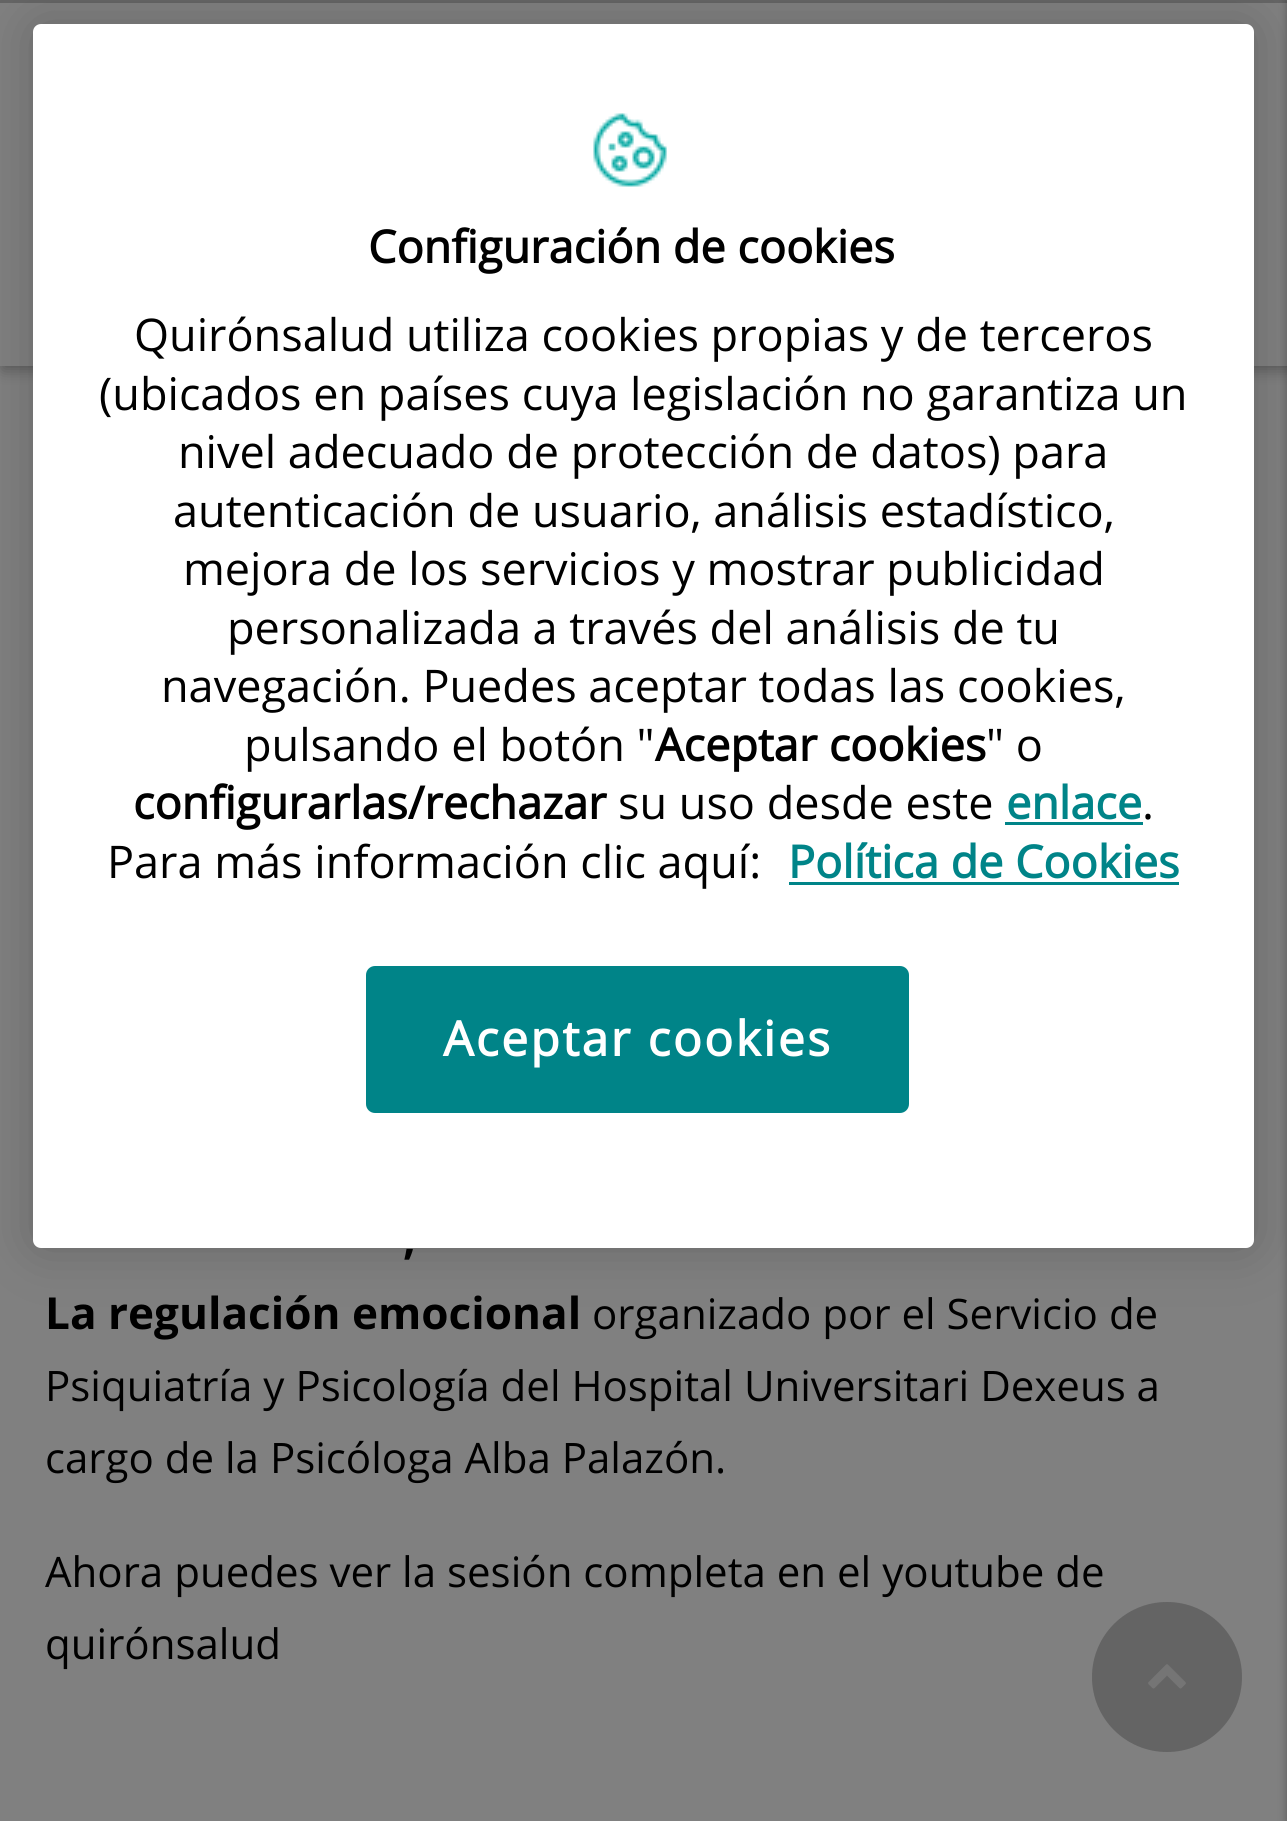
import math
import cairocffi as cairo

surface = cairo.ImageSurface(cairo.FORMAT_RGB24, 1287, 1821)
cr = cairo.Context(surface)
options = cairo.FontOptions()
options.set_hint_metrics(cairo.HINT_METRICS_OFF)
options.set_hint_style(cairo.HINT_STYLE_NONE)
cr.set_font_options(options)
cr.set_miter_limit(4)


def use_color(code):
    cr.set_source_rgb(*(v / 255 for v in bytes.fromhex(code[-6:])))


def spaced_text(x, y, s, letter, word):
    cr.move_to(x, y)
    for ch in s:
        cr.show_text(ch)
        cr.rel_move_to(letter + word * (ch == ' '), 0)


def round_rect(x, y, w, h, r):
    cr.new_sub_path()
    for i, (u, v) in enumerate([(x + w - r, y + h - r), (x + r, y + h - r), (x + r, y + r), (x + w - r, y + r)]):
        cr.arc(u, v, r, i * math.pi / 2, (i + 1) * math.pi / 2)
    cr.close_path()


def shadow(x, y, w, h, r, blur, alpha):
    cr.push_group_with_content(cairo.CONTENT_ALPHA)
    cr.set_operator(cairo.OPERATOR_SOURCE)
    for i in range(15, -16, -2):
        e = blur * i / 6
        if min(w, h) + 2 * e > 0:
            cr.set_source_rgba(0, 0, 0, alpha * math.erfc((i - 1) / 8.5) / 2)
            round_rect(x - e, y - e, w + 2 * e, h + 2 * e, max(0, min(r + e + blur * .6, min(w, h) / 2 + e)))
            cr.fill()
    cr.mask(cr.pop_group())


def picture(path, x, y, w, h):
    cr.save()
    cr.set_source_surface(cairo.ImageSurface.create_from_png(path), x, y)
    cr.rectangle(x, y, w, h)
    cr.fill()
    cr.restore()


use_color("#808080")
cr.paint()
use_color("#000000")
shadow(3, 3, 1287, 366, 0, 7.5, 0.33)
use_color("#808080")
cr.rectangle(0, 3, 1287, 363)
cr.fill()
use_color("#656565")
cr.rectangle(0, 0, 1287, 3)
cr.fill()
use_color("#000000")
shadow(33, 24, 1221, 1224, 8, 27, 0.2)
use_color("#ffffff")
round_rect(33, 24, 1221, 1224, 8)
cr.fill()
picture("img1.png", 593, 113, 74, 74)
cr.select_font_face("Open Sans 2", cairo.FONT_SLANT_NORMAL, cairo.FONT_WEIGHT_BOLD)
cr.set_font_size(45)
use_color("#000000")
cr.move_to(368, 263)
cr.show_text("Configuración de cookies")
cr.select_font_face("Open Sans")
cr.move_to(134, 351)
cr.show_text("Quirónsalud utiliza cookies propias y de terceros")
cr.move_to(99, 410)
cr.show_text("(ubicados en países cuya legislación no garantiza un")
cr.move_to(178, 468)
cr.show_text("nivel adecuado de protección de datos) para")
cr.move_to(173, 527)
cr.show_text("autenticación de usuario, análisis estadístico,")
cr.move_to(183, 585)
cr.show_text("mejora de los servicios y mostrar publicidad")
cr.move_to(227, 644)
cr.show_text("personalizada a través del análisis de tu")
cr.move_to(161, 702)
cr.show_text("navegación. Puedes aceptar todas las cookies,")
cr.move_to(244, 761)
cr.show_text("pulsando el botón \"")
cr.select_font_face("Open Sans 2", cairo.FONT_SLANT_NORMAL, cairo.FONT_WEIGHT_BOLD)
cr.move_to(655, 761)
cr.show_text("Aceptar cookies")
cr.select_font_face("Open Sans")
cr.move_to(986, 761)
cr.show_text("\" o")
cr.select_font_face("Open Sans 2", cairo.FONT_SLANT_NORMAL, cairo.FONT_WEIGHT_BOLD)
cr.move_to(133, 819)
cr.show_text("configurarlas/rechazar")
cr.select_font_face("Open Sans")
cr.move_to(618, 819)
cr.show_text("su uso desde este")
cr.select_font_face("Open Sans 2", cairo.FONT_SLANT_NORMAL, cairo.FONT_WEIGHT_BOLD)
use_color("#008488")
cr.move_to(1006, 819)
cr.show_text("enlace")
cr.rectangle(1005, 822, 138, 3)
cr.fill()
cr.select_font_face("Open Sans")
use_color("#000000")
cr.move_to(1142, 819)
cr.show_text(".")
cr.move_to(107, 878)
cr.show_text("Para más información clic aquí:")
cr.select_font_face("Open Sans 2", cairo.FONT_SLANT_NORMAL, cairo.FONT_WEIGHT_BOLD)
use_color("#008488")
cr.move_to(788, 878)
cr.show_text("Política de Cookies")
cr.rectangle(789, 882, 390, 3)
cr.fill()
round_rect(367.5, 967.5, 540, 144, 7.5)
cr.fill_preserve()
cr.set_line_width(3)
cr.stroke()
cr.set_font_size(48)
use_color("#ffffff")
spaced_text(443, 1056, "Aceptar cookies", 2.4, 0)
use_color("#000000")
shadow(1287, 0, 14, 1821, 0, 4.5, 0.3)
cr.select_font_face("Open Sans", cairo.FONT_SLANT_NORMAL, cairo.FONT_WEIGHT_BOLD)
cr.set_font_size(44.1)
use_color("#000000")
cr.move_to(403, 1254)
cr.show_text(",")
cr.move_to(45, 1329)
cr.show_text("La regulación emocional")
cr.select_font_face("Open Sans")
cr.set_font_size(42)
cr.move_to(592, 1329)
cr.show_text("organizado por el Servicio de")
cr.move_to(45, 1401)
cr.show_text("Psiquiatría y Psicología del Hospital Universitari Dexeus a")
cr.move_to(45, 1473)
cr.show_text("cargo de la Psicóloga Alba Palazón.")
cr.move_to(45, 1587)
cr.show_text("Ahora puedes ver la sesión completa en el youtube de")
cr.move_to(45, 1659)
cr.show_text("quirónsalud")
use_color("#707070")
cr.new_path()
cr.arc(1167, 1677, 75, 0, 2 * math.pi)
cr.fill()
cr.set_source_rgba(0.2, 0.2, 0.2, 0.2)
cr.arc(1167, 1677, 75, 0, 2 * math.pi)
cr.fill()
picture("img2.png", 1148, 1664, 38, 25)
surface.write_to_png("result.png")
